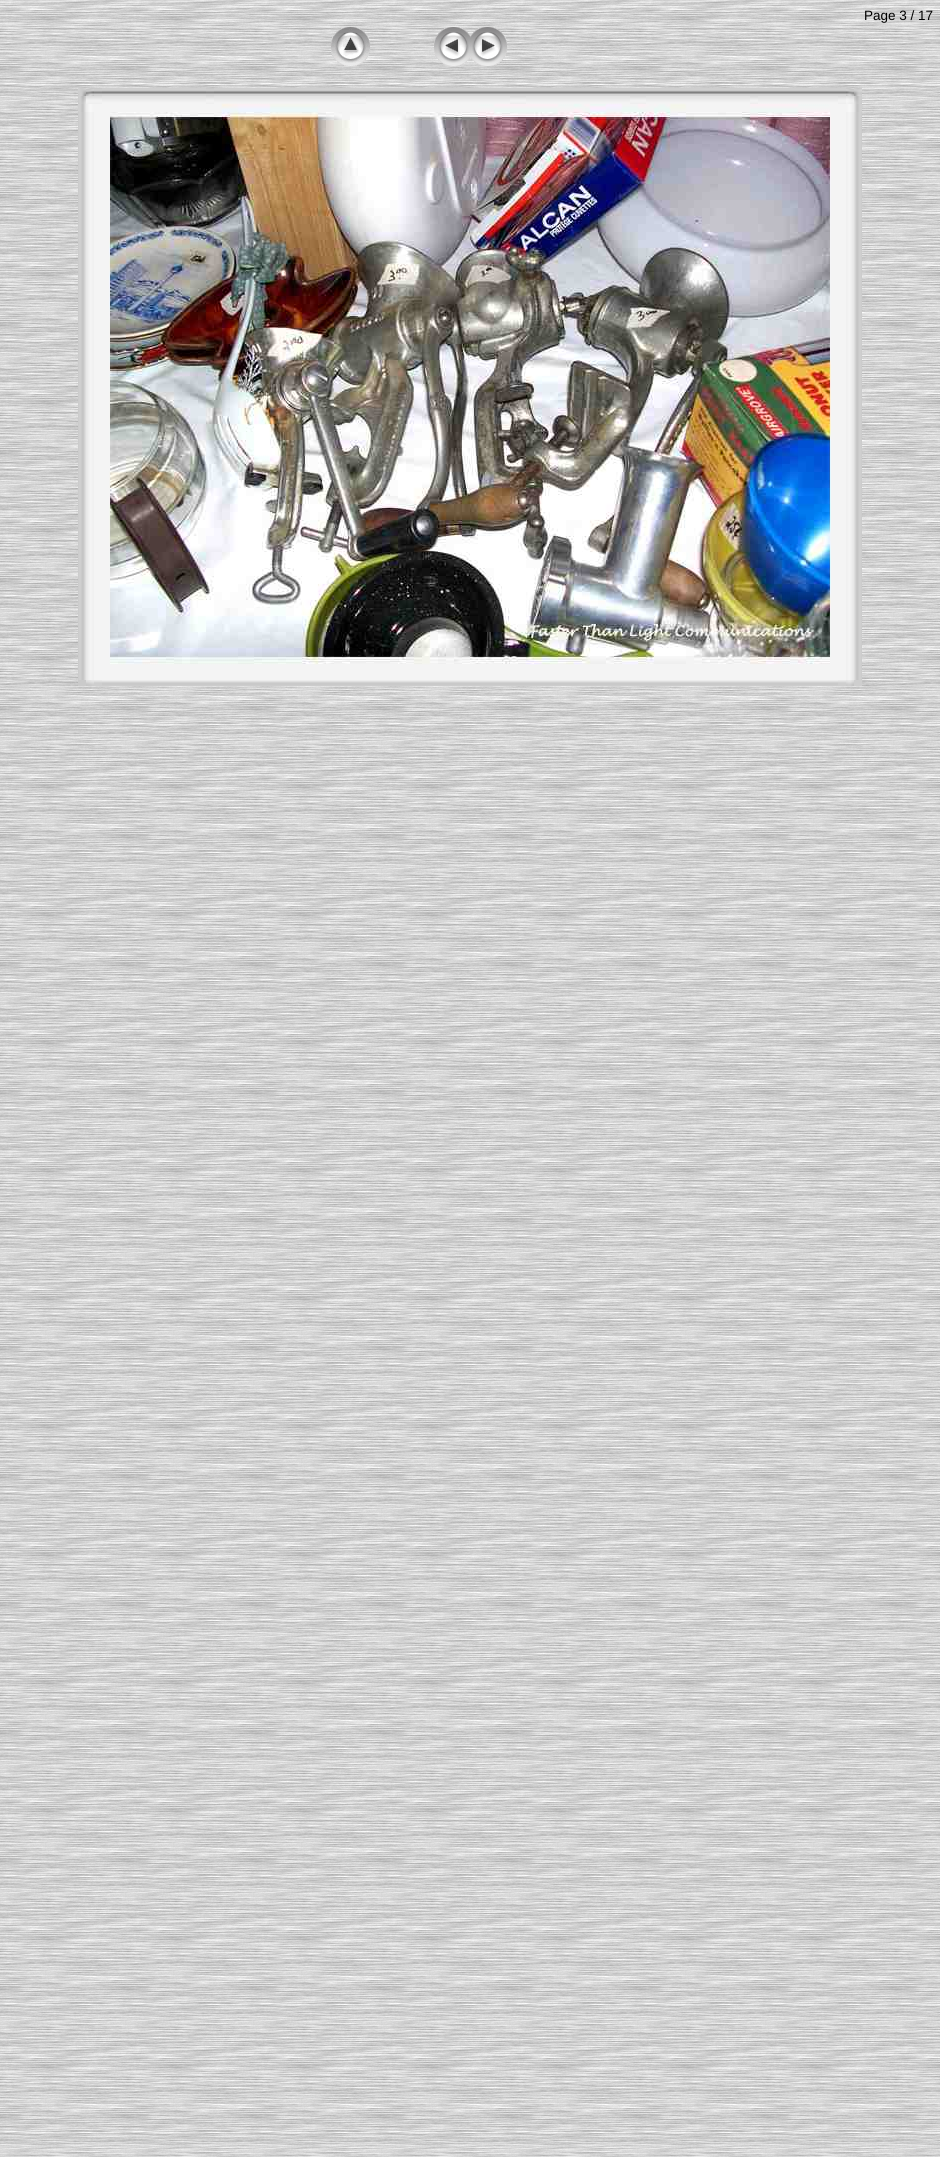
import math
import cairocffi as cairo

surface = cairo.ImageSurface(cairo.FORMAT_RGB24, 940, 2157)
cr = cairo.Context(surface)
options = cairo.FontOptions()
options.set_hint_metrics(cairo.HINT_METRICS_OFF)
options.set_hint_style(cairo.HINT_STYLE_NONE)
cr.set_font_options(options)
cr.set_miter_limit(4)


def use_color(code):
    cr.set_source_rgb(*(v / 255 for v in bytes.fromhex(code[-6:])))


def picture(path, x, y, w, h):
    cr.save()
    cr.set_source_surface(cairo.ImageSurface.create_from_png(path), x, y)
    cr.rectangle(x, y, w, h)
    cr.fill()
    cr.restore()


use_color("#ffffff")
cr.paint()
picture("img1.png", 0, 0, 940, 2157)
cr.select_font_face("Liberation Sans")
cr.set_font_size(13.5)
use_color("#000000")
cr.move_to(864, 20)
cr.show_text("Page 3 / 17")
picture("img2.png", 331, 27, 39, 39)
picture("img3.png", 434, 27, 36, 39)
picture("img4.png", 470, 27, 37, 39)
picture("img5.png", 78, 88, 784, 598)
surface.write_to_png("result.png")
